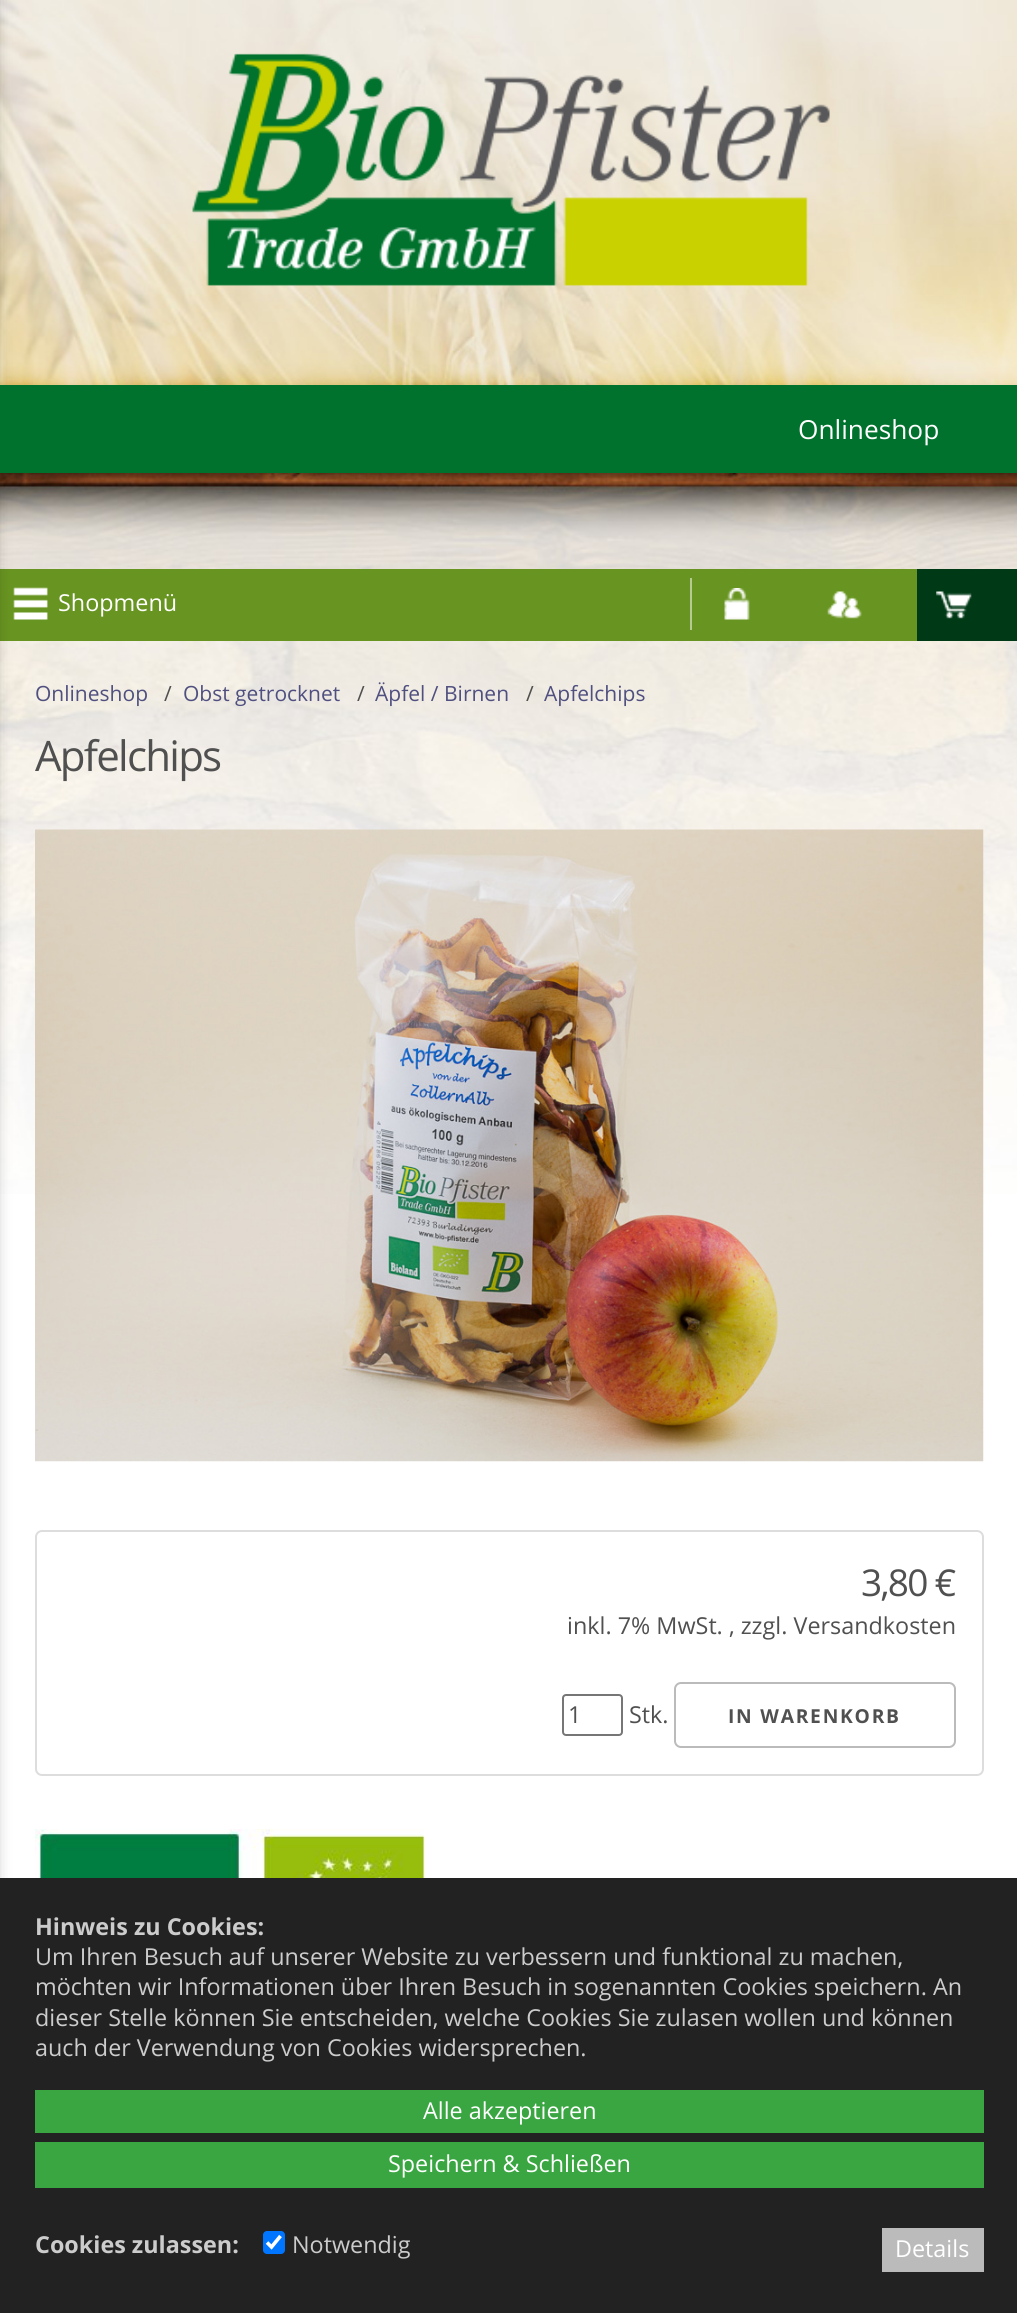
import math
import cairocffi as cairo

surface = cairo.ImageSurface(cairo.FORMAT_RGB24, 1017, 2313)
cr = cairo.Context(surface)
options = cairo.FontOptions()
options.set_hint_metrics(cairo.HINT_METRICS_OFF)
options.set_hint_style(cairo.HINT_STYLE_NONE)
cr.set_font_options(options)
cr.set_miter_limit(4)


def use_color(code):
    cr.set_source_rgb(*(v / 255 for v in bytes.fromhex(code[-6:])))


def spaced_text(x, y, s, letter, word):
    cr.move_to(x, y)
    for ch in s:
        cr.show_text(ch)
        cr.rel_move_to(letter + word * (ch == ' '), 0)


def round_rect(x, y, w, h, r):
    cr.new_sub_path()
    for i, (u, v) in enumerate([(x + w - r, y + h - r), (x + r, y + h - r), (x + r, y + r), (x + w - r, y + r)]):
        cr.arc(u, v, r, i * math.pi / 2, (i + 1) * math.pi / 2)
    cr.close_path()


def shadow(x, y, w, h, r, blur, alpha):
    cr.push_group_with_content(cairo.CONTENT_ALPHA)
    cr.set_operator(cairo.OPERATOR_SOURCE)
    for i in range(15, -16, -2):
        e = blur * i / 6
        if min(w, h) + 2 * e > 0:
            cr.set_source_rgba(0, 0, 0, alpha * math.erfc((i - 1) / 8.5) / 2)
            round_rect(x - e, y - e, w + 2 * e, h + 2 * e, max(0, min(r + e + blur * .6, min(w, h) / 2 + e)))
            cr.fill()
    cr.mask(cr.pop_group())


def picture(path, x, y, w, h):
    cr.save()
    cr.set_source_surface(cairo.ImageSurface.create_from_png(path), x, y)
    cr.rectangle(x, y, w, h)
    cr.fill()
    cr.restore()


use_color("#ffffff")
cr.paint()
picture("img1.png", 0, 0, 1017, 269)
picture("img2.png", 0, 269, 1017, 116)
picture("img4.png", 0, 473, 1017, 721)
use_color("#689521")
cr.rectangle(0, 569, 917, 72)
cr.fill()
picture("img5.png", 13, 587, 35, 33)
use_color("#000000")
shadow(-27, 0, 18, 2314, 0, 9, 0.5)
picture("img3.png", 192, 53, 638, 233)
shadow(0, 389, 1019, 87, 0, 2.5, 0.4)
use_color("#00722d")
cr.rectangle(0, 385, 1017, 88)
cr.fill()
cr.select_font_face("Open Sans")
cr.set_font_size(26.25)
use_color("#ffffff")
cr.move_to(798, 439)
cr.show_text("Onlineshop")
cr.set_font_size(23.35)
cr.move_to(58, 611)
cr.show_text("Shopmenü")
use_color("#b4ca90")
cr.rectangle(690, 578, 2, 52)
cr.fill()
picture("img6.png", 724, 588, 26, 32)
picture("img7.png", 827, 591, 35, 28)
use_color("#003916")
cr.rectangle(917, 569, 100, 72)
cr.fill()
picture("img8.png", 936, 591, 36, 28)
cr.set_font_size(21)
use_color("#505080")
cr.move_to(35, 701)
cr.show_text("Onlineshop")
use_color("#505050")
cr.move_to(164, 701)
cr.show_text("/")
use_color("#505080")
cr.move_to(183, 701)
cr.show_text("Obst getrocknet")
use_color("#505050")
cr.move_to(357, 701)
cr.show_text("/")
use_color("#505080")
cr.move_to(375, 701)
cr.show_text("Äpfel / Birnen")
use_color("#505050")
cr.move_to(526, 701)
cr.show_text("/")
use_color("#505080")
cr.move_to(544, 701)
cr.show_text("Apfelchips")
cr.set_font_size(42)
use_color("#505050")
spaced_text(35, 771, "Apfelchips", -1.75, 0)
picture("img9.png", 35, 829, 949, 633)
round_rect(36, 1531, 947, 244, 6)
use_color("#dddddd")
cr.stroke()
cr.set_font_size(37)
use_color("#505050")
spaced_text(861, 1596, "3,80 €", -1.75, 0)
cr.set_font_size(23.35)
cr.move_to(567, 1634)
cr.show_text("inkl. 7% MwSt. , zzgl. Versandkosten")
round_rect(563, 1695, 59, 40, 3)
use_color("#767676")
cr.stroke()
use_color("#505050")
cr.move_to(568, 1723)
cr.show_text("1")
cr.move_to(629, 1723)
cr.show_text("Stk.")
round_rect(675, 1683, 280, 64, 6)
use_color("#bbbbbb")
cr.stroke()
cr.select_font_face("Open Sans", cairo.FONT_SLANT_NORMAL, cairo.FONT_WEIGHT_BOLD)
cr.set_font_size(19.25)
use_color("#505050")
spaced_text(728, 1723, "IN WARENKORB", 1.75, 0)
picture("img10.png", 35, 1829, 391, 49)
use_color("#222222")
cr.rectangle(0, 1878, 1017, 435)
cr.fill()
cr.set_font_size(23.35)
use_color("#cccccc")
cr.move_to(35, 1935)
cr.show_text("Hinweis zu Cookies:")
cr.select_font_face("Open Sans")
cr.move_to(35, 1965)
cr.show_text("Um Ihren Besuch auf unserer Website zu verbessern und funktional zu machen,")
cr.move_to(35, 1995)
cr.show_text("möchten wir Informationen über Ihren Besuch in sogenannten Cookies speichern. An")
cr.move_to(35, 2026)
cr.show_text("dieser Stelle können Sie entscheiden, welche Cookies Sie zulasen wollen und können")
cr.move_to(35, 2056)
cr.show_text("auch der Verwendung von Cookies widersprechen.")
use_color("#39a642")
cr.rectangle(35, 2090, 949, 43)
cr.fill()
use_color("#ffffff")
cr.move_to(423, 2119)
cr.show_text("Alle akzeptieren")
use_color("#39a642")
cr.rectangle(35, 2142, 949, 46)
cr.fill()
use_color("#ffffff")
cr.move_to(388, 2172)
cr.show_text("Speichern & Schließen")
cr.select_font_face("Open Sans", cairo.FONT_SLANT_NORMAL, cairo.FONT_WEIGHT_BOLD)
use_color("#cccccc")
cr.move_to(35, 2253)
cr.show_text("Cookies zulassen:")
use_color("#0075ff")
round_rect(263, 2231, 22, 23, 4)
cr.fill()
cr.new_path()
cr.move_to(267, 2242.5)
cr.line_to(271.5, 2247)
cr.line_to(280.5, 2236)
use_color("#ffffff")
cr.set_line_width(3.6)
cr.stroke()
cr.select_font_face("Open Sans")
use_color("#cccccc")
cr.move_to(292, 2253)
cr.show_text("Notwendig")
use_color("#bbbbbb")
cr.rectangle(882, 2228, 102, 44)
cr.fill()
use_color("#ffffff")
cr.move_to(895, 2257)
cr.show_text("Details")
surface.write_to_png("result.png")
